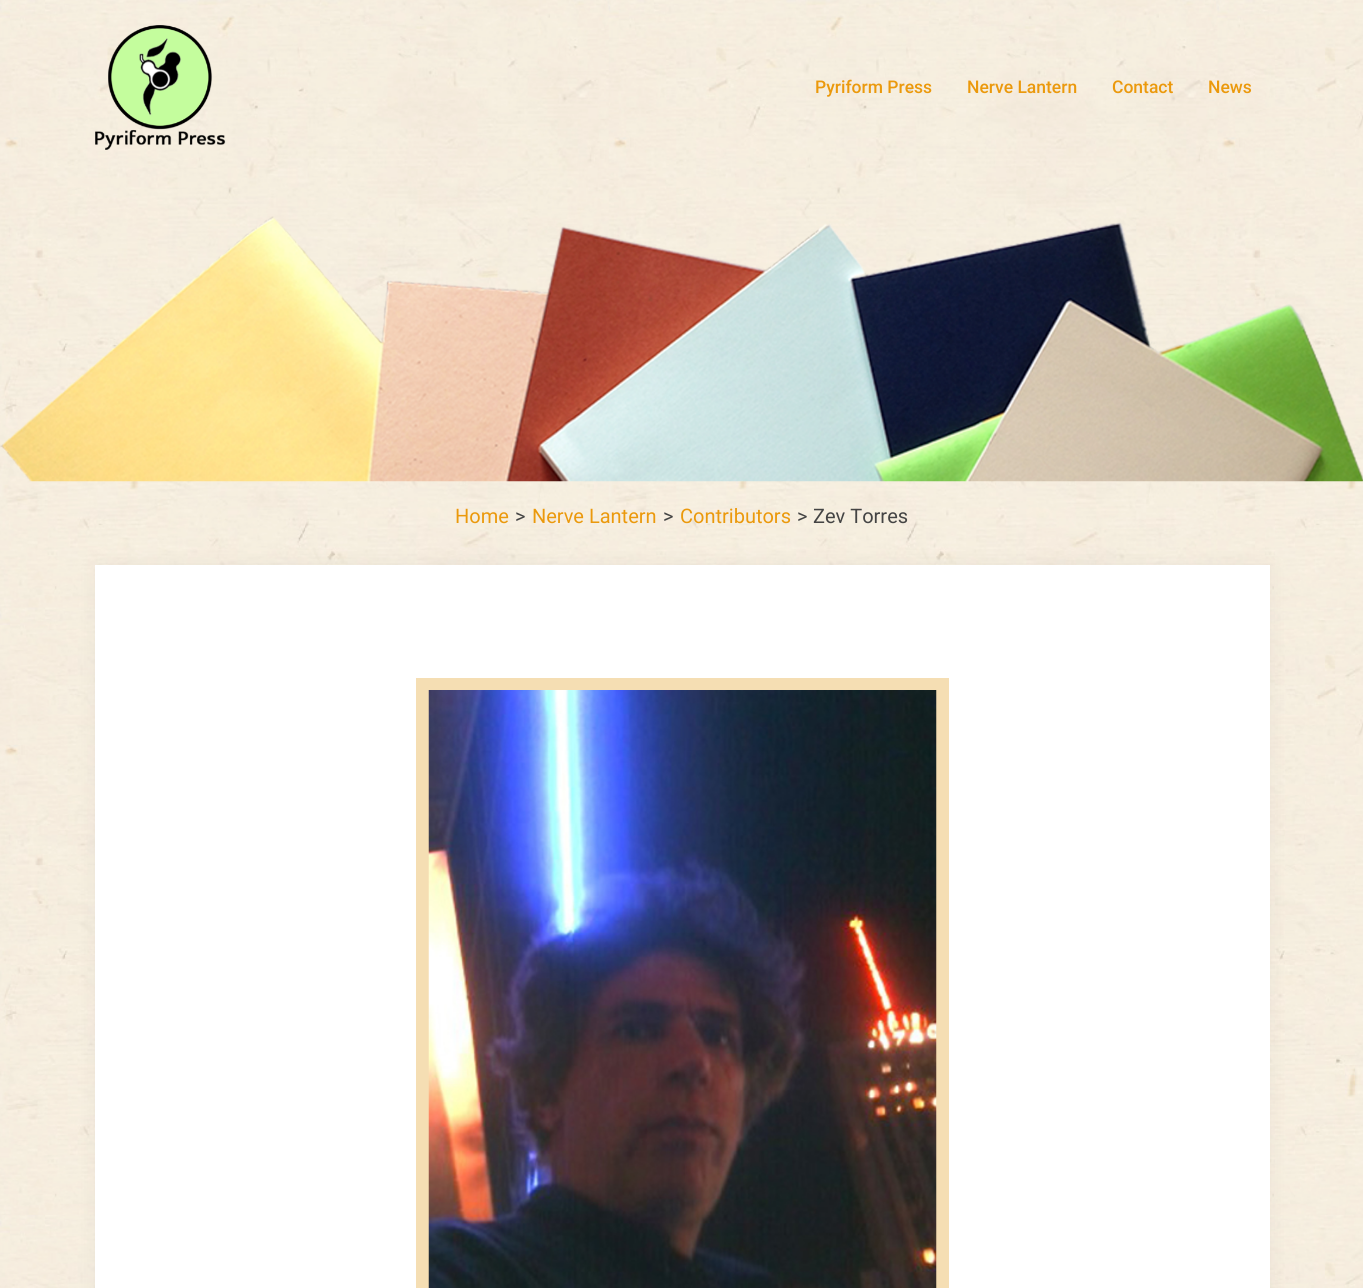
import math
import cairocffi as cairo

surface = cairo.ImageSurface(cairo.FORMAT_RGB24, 1363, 1288)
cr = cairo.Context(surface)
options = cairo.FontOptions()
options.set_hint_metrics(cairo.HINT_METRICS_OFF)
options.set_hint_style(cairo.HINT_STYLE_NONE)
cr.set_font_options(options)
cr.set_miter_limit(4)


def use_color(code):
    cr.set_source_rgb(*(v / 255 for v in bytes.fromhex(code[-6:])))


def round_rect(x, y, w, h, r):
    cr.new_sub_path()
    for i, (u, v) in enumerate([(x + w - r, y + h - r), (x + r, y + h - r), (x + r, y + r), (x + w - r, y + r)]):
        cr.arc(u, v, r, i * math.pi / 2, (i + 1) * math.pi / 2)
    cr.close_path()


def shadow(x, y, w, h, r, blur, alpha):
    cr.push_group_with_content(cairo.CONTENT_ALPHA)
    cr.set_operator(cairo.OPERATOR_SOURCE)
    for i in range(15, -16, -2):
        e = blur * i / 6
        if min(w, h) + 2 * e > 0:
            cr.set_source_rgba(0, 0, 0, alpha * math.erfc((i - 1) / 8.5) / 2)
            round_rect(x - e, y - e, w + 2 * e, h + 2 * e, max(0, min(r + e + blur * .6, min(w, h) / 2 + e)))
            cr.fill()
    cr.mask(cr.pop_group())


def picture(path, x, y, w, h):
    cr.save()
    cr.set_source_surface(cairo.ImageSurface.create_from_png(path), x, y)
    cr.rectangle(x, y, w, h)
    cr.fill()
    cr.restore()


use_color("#ffffff")
cr.paint()
picture("img1.png", 0, 0, 1363, 1288)
picture("img2.png", 95, 25, 131, 125)
cr.select_font_face("Roboto Medium")
cr.set_font_size(17.5)
use_color("#eb990c")
cr.move_to(815, 93)
cr.show_text("Pyriform Press")
cr.move_to(967, 93)
cr.show_text("Nerve Lantern")
cr.move_to(1112, 93)
cr.show_text("Contact")
cr.move_to(1208, 93)
cr.show_text("News")
picture("img3.png", 0, 216, 1363, 266)
cr.select_font_face("Roboto")
cr.set_font_size(20)
cr.move_to(455, 523)
cr.show_text("Home")
use_color("#444444")
cr.move_to(515, 523)
cr.show_text(">")
use_color("#eb990c")
cr.move_to(532, 523)
cr.show_text("Nerve Lantern")
use_color("#444444")
cr.move_to(663, 523)
cr.show_text(">")
use_color("#eb990c")
cr.move_to(680, 523)
cr.show_text("Contributors")
use_color("#444444")
cr.move_to(797, 523)
cr.show_text(">")
cr.move_to(813, 523)
cr.show_text("Zev Torres")
use_color("#000000")
shadow(95, 565, 1175, 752, 0, 9.5, 0.05)
use_color("#ffffff")
cr.rectangle(95, 565, 1175, 723)
cr.fill()
cr.rectangle(422.5, 684.5, 520, 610)
use_color("#f5deb3")
cr.set_line_width(13)
cr.stroke()
picture("img4.png", 428, 690, 509, 598)
surface.write_to_png("result.png")
